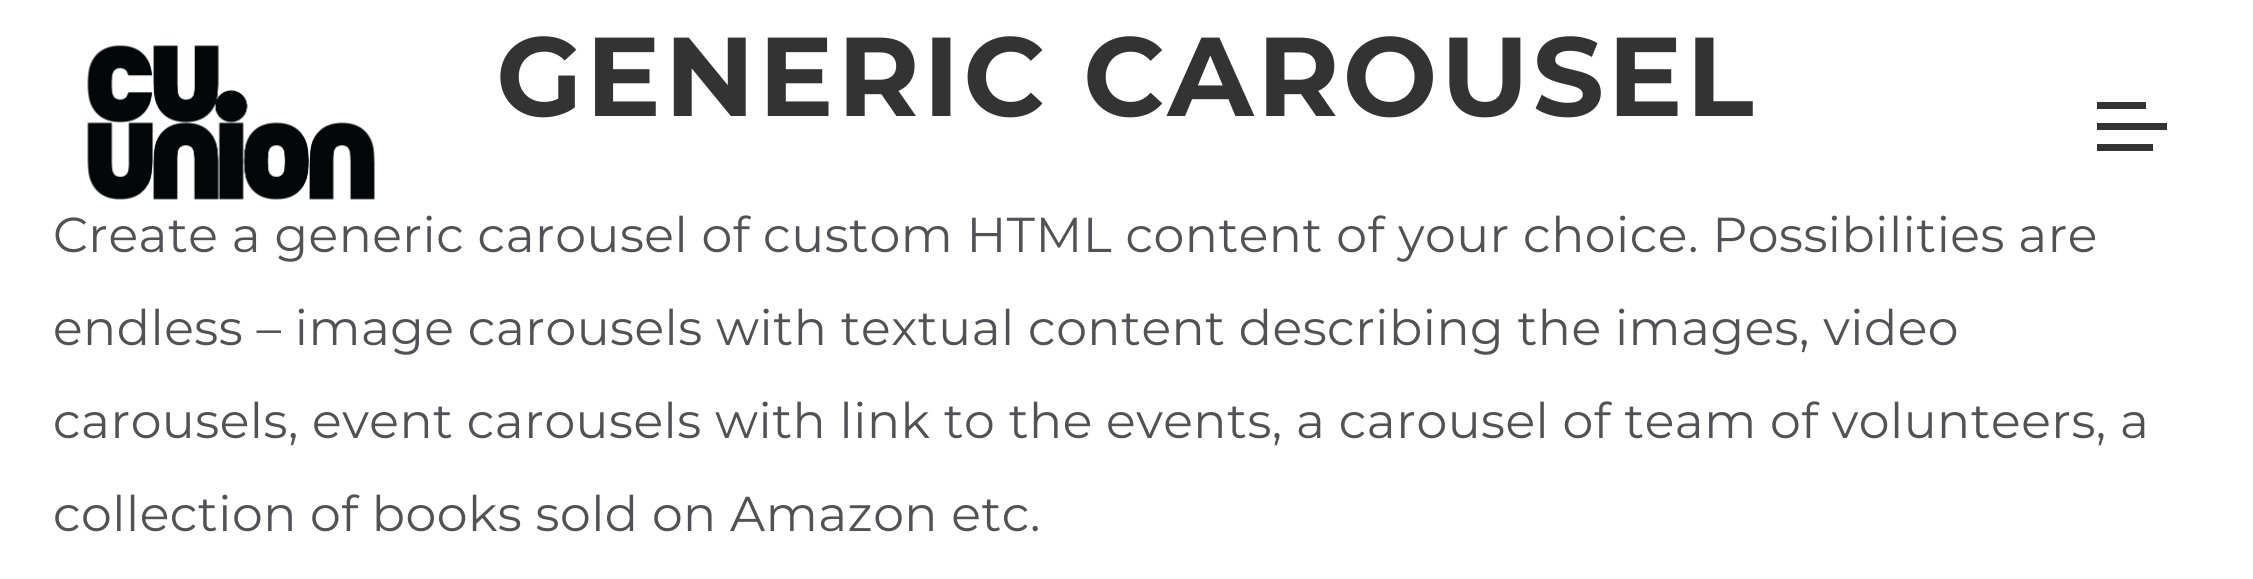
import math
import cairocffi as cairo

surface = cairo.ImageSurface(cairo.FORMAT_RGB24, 2253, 579)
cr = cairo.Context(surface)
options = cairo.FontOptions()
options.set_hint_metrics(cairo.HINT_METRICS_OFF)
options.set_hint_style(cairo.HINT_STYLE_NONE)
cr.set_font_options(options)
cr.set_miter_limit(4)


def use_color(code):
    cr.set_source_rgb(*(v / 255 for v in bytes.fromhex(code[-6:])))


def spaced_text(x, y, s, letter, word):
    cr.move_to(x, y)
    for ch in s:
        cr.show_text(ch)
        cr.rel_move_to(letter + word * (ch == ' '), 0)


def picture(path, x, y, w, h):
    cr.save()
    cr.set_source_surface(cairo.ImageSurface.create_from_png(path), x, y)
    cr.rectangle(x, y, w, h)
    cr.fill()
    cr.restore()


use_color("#ffffff")
cr.paint()
cr.select_font_face("Montserrat", cairo.FONT_SLANT_NORMAL, cairo.FONT_WEIGHT_BOLD)
cr.set_font_size(112)
use_color("#333333")
spaced_text(496, 116, "GENERIC CAROUSEL", 3.5, 0)
cr.select_font_face("Montserrat")
cr.set_font_size(49)
use_color("#515156")
spaced_text(53, 252, "Create a generic carousel of custom HTML content of your choice. Possibilities are", 0.5, 0)
spaced_text(53, 345, "endless – image carousels with textual content describing the images, video", 0.5, 0)
spaced_text(53, 438, "carousels, event carousels with link to the events, a carousel of team of volunteers, a", 0.5, 0)
spaced_text(53, 531, "collection of books sold on Amazon etc.", 0.5, 0)
picture("img1.png", 87, 45, 288, 155)
use_color("#333333")
cr.rectangle(2097, 123, 70, 7)
cr.fill()
cr.rectangle(2097, 102, 49, 7)
cr.fill()
cr.rectangle(2097, 144, 56, 7)
cr.fill()
surface.write_to_png("result.png")
